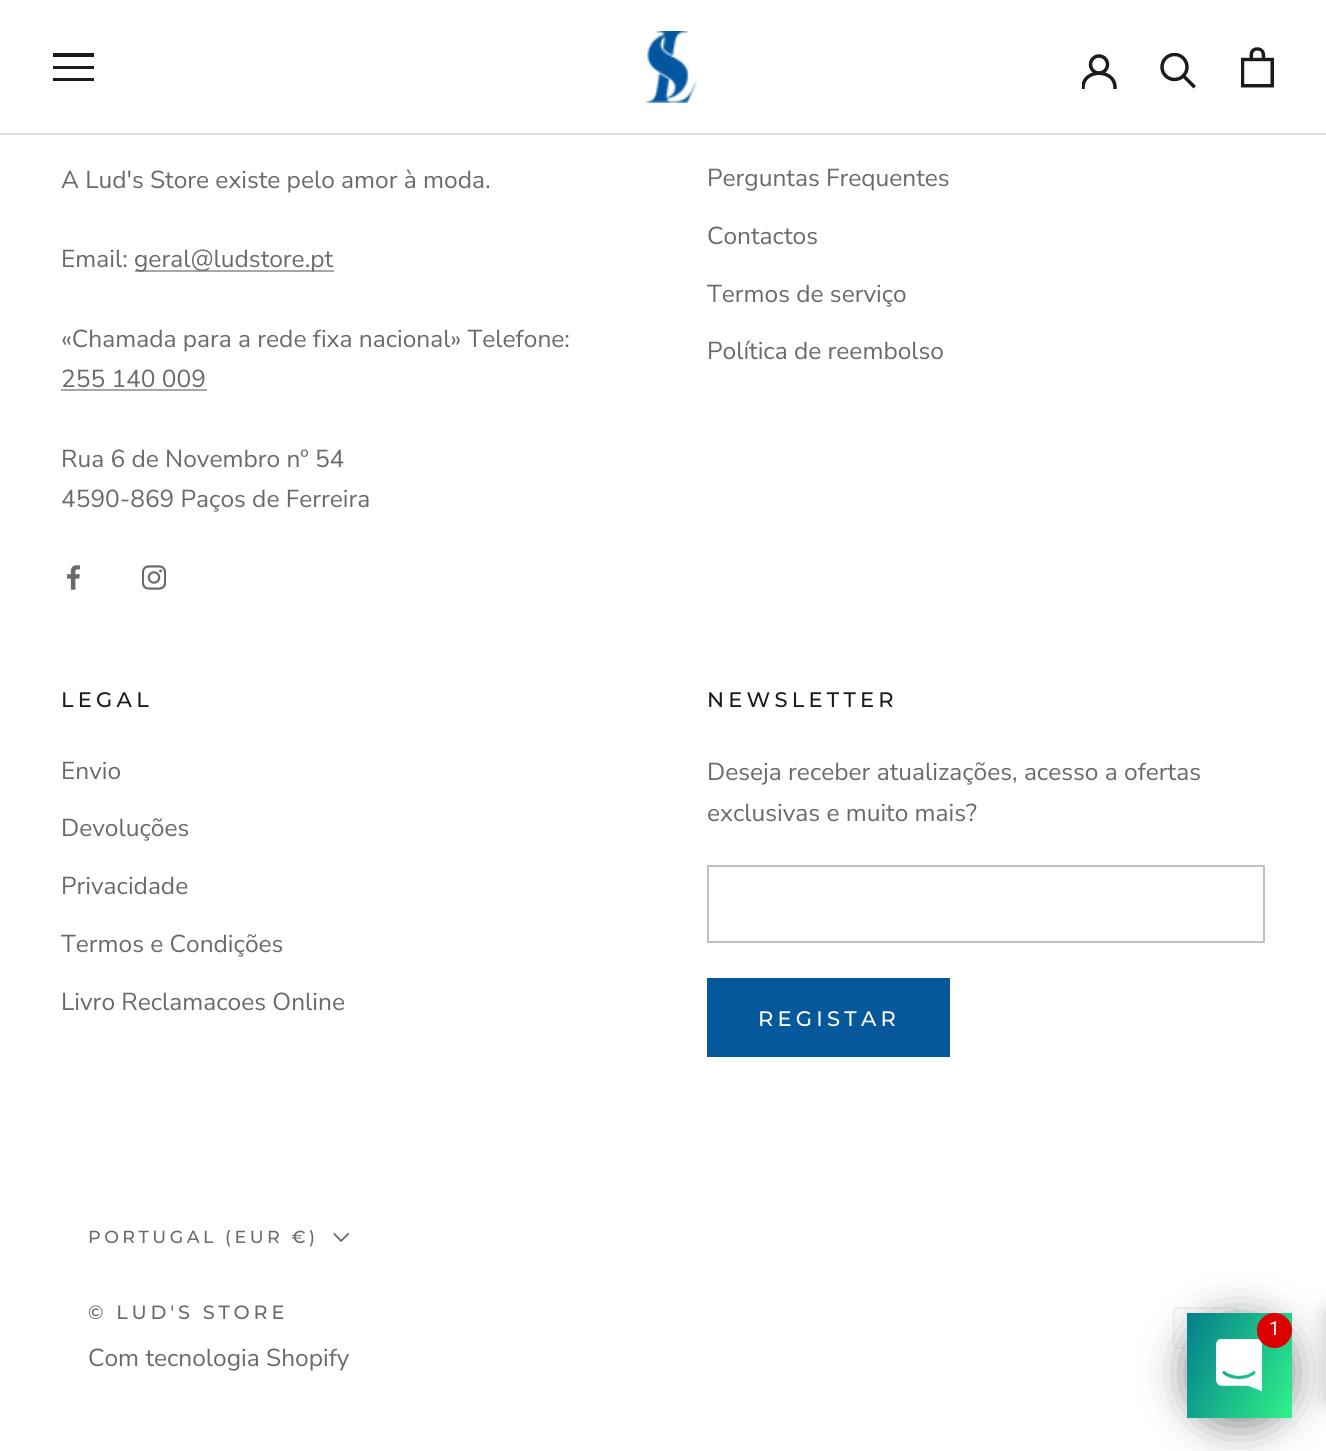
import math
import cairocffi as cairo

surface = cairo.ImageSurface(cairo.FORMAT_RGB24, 1326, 1451)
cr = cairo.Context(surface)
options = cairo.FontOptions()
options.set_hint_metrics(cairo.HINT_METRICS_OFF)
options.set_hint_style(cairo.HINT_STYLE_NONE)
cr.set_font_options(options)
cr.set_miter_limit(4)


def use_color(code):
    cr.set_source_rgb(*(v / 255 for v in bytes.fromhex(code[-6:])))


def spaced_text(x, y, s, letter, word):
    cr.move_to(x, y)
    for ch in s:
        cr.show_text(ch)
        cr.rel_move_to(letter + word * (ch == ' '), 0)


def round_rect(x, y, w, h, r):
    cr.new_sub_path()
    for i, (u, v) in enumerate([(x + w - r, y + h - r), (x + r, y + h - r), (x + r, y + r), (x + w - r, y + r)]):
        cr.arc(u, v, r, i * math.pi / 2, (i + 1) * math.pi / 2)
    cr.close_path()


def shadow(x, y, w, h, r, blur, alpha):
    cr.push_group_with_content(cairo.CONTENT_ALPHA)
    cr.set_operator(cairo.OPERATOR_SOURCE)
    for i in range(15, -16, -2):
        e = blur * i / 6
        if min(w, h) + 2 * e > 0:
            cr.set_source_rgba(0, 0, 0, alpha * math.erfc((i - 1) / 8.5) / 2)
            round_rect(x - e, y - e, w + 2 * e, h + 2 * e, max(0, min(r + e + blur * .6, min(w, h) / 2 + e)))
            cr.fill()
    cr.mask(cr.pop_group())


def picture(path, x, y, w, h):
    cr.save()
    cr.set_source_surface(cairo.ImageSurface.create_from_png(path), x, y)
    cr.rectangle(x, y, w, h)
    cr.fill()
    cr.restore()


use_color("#ffffff")
cr.paint()
use_color("#dddddd")
cr.rectangle(0, 133, 1326, 2)
cr.fill()
cr.save()
cr.rectangle(53, 53, 42, 29)
cr.clip()
use_color("#1c1b1b")
cr.new_path()
cr.move_to(52, 81)
cr.line_to(52, 78)
cr.line_to(94, 78)
cr.line_to(94, 81)
cr.close_path()
cr.move_to(52, 66)
cr.line_to(94, 66)
cr.line_to(94, 69)
cr.line_to(52, 69)
cr.close_path()
cr.move_to(52, 53)
cr.line_to(94, 53)
cr.line_to(94, 57)
cr.line_to(52, 57)
cr.close_path()
cr.fill()
cr.restore()
picture("img1.png", 645, 31, 52, 72)
cr.save()
cr.rectangle(1082, 54, 35, 35)
cr.clip()
cr.new_path()
cr.move_to(1083, 87.5)
cr.curve_to(1083, 68.5, 1115, 68.5, 1115, 87.5)
use_color("#1c1b1b")
cr.set_line_width(3.5)
cr.set_line_cap(cairo.LINE_CAP_SQUARE)
cr.stroke()
cr.restore()
cr.arc(1099, 64.5, 8.5, 0, 2 * math.pi)
use_color("#1c1b1b")
cr.set_line_width(3.5)
cr.stroke()
cr.new_path()
cr.move_to(1193.5, 86)
cr.line_to(1183.5, 76)
cr.set_line_cap(cairo.LINE_CAP_SQUARE)
cr.stroke()
cr.save()
cr.rectangle(1160, 53, 37, 36)
cr.clip()
cr.arc(1174.5, 67, 12.5, 0, 2 * math.pi)
cr.set_line_cap(cairo.LINE_CAP_BUTT)
cr.stroke()
cr.restore()
picture("img2.png", 1241, 47, 33, 41)
cr.select_font_face("Nunito Sans")
cr.set_font_size(24.5)
use_color("#6a6a6a")
cr.move_to(61, 188)
cr.show_text("A Lud's Store existe pelo amor à moda.")
cr.move_to(61, 267)
cr.show_text("Email:")
use_color("#a6a6a6")
cr.rectangle(135, 270, 199, 2)
cr.fill()
use_color("#6a6a6a")
cr.move_to(134, 267)
cr.show_text("geral@ludstore.pt")
cr.move_to(61, 347)
cr.show_text("«Chamada para a rede fixa nacional» Telefone:")
cr.move_to(61, 387)
cr.show_text("255 140 009")
use_color("#a6a6a6")
cr.rectangle(61, 389, 146, 2)
cr.fill()
use_color("#6a6a6a")
cr.move_to(61, 467)
cr.show_text("Rua 6 de Novembro nº 54")
cr.move_to(61, 507)
cr.show_text("4590-869 Paços de Ferreira")
picture("img3.png", 67, 565, 13, 25)
picture("img4.png", 142, 565, 24, 25)
cr.move_to(707, 186)
cr.show_text("Perguntas Frequentes")
cr.move_to(707, 244)
cr.show_text("Contactos")
cr.move_to(707, 302)
cr.show_text("Termos de serviço")
cr.move_to(707, 359)
cr.show_text("Política de reembolso")
cr.select_font_face("Montserrat Medium")
cr.set_font_size(21)
use_color("#1c1b1b")
spaced_text(61, 707, "LEGAL", 4.25, 0)
cr.select_font_face("Nunito Sans")
cr.set_font_size(24.5)
use_color("#6a6a6a")
cr.move_to(61, 779)
cr.show_text("Envio")
cr.move_to(61, 836)
cr.show_text("Devoluções")
cr.move_to(61, 894)
cr.show_text("Privacidade")
cr.move_to(61, 952)
cr.show_text("Termos e Condições")
cr.move_to(61, 1010)
cr.show_text("Livro Reclamacoes Online")
cr.select_font_face("Montserrat Medium")
cr.set_font_size(21)
use_color("#1c1b1b")
spaced_text(707, 707, "NEWSLETTER", 4.25, 0)
cr.select_font_face("Nunito Sans")
cr.set_font_size(24.5)
use_color("#6a6a6a")
cr.move_to(707, 780)
cr.show_text("Deseja receber atualizações, acesso a ofertas")
cr.move_to(707, 821)
cr.show_text("exclusivas e muito mais?")
cr.rectangle(708, 866, 556, 76)
use_color("#c0c0c0")
cr.set_line_width(2)
cr.set_line_cap(cairo.LINE_CAP_BUTT)
cr.stroke()
cr.rectangle(708, 979, 241, 77)
use_color("#06589c")
cr.stroke()
cr.rectangle(709, 980, 239, 75)
cr.fill()
cr.select_font_face("Montserrat Medium")
cr.set_font_size(21)
use_color("#ffffff")
spaced_text(758, 1026, "REGISTAR", 4.25, 0)
cr.set_font_size(17.5)
use_color("#6a6a6a")
spaced_text(88, 1243, "PORTUGAL (EUR €)", 3.5, 0)
cr.new_path()
cr.move_to(348, 1234)
cr.line_to(341, 1241)
cr.line_to(334.5, 1234)
cr.set_line_width(1.8)
cr.set_line_cap(cairo.LINE_CAP_SQUARE)
cr.stroke()
cr.set_font_size(19.25)
spaced_text(88, 1319, "© LUD'S STORE", 3.8, 0)
cr.select_font_face("Nunito Sans")
cr.set_font_size(24.5)
cr.move_to(88, 1366)
cr.show_text("Com tecnologia Shopify")
picture("img5.png", 1173, 1307, 66, 42)
use_color("#020610")
shadow(1187, 1320, 105, 105, 52.5, 21, 0.5)
use_color("#757575")
shadow(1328, 1313, 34, 87, 0, 12, 0.5)
gradient = cairo.LinearGradient(1176, 1336, 1302, 1394)
gradient.add_color_stop_rgba(0, 0.016, 0.486, 0.553, 1)
gradient.add_color_stop_rgba(1, 0.184, 0.949, 0.537, 1)
cr.set_source(gradient)
cr.rectangle(1187, 1313, 105, 105)
cr.fill()
picture("img6.png", 1216, 1339, 46, 52)
use_color("#dd0000")
cr.arc(1274.5, 1330.5, 17.5, 0, 2 * math.pi)
cr.fill()
cr.select_font_face("Roboto")
cr.set_font_size(19.25)
use_color("#ffffff")
cr.move_to(1269, 1335)
cr.show_text("1")
surface.write_to_png("result.png")
